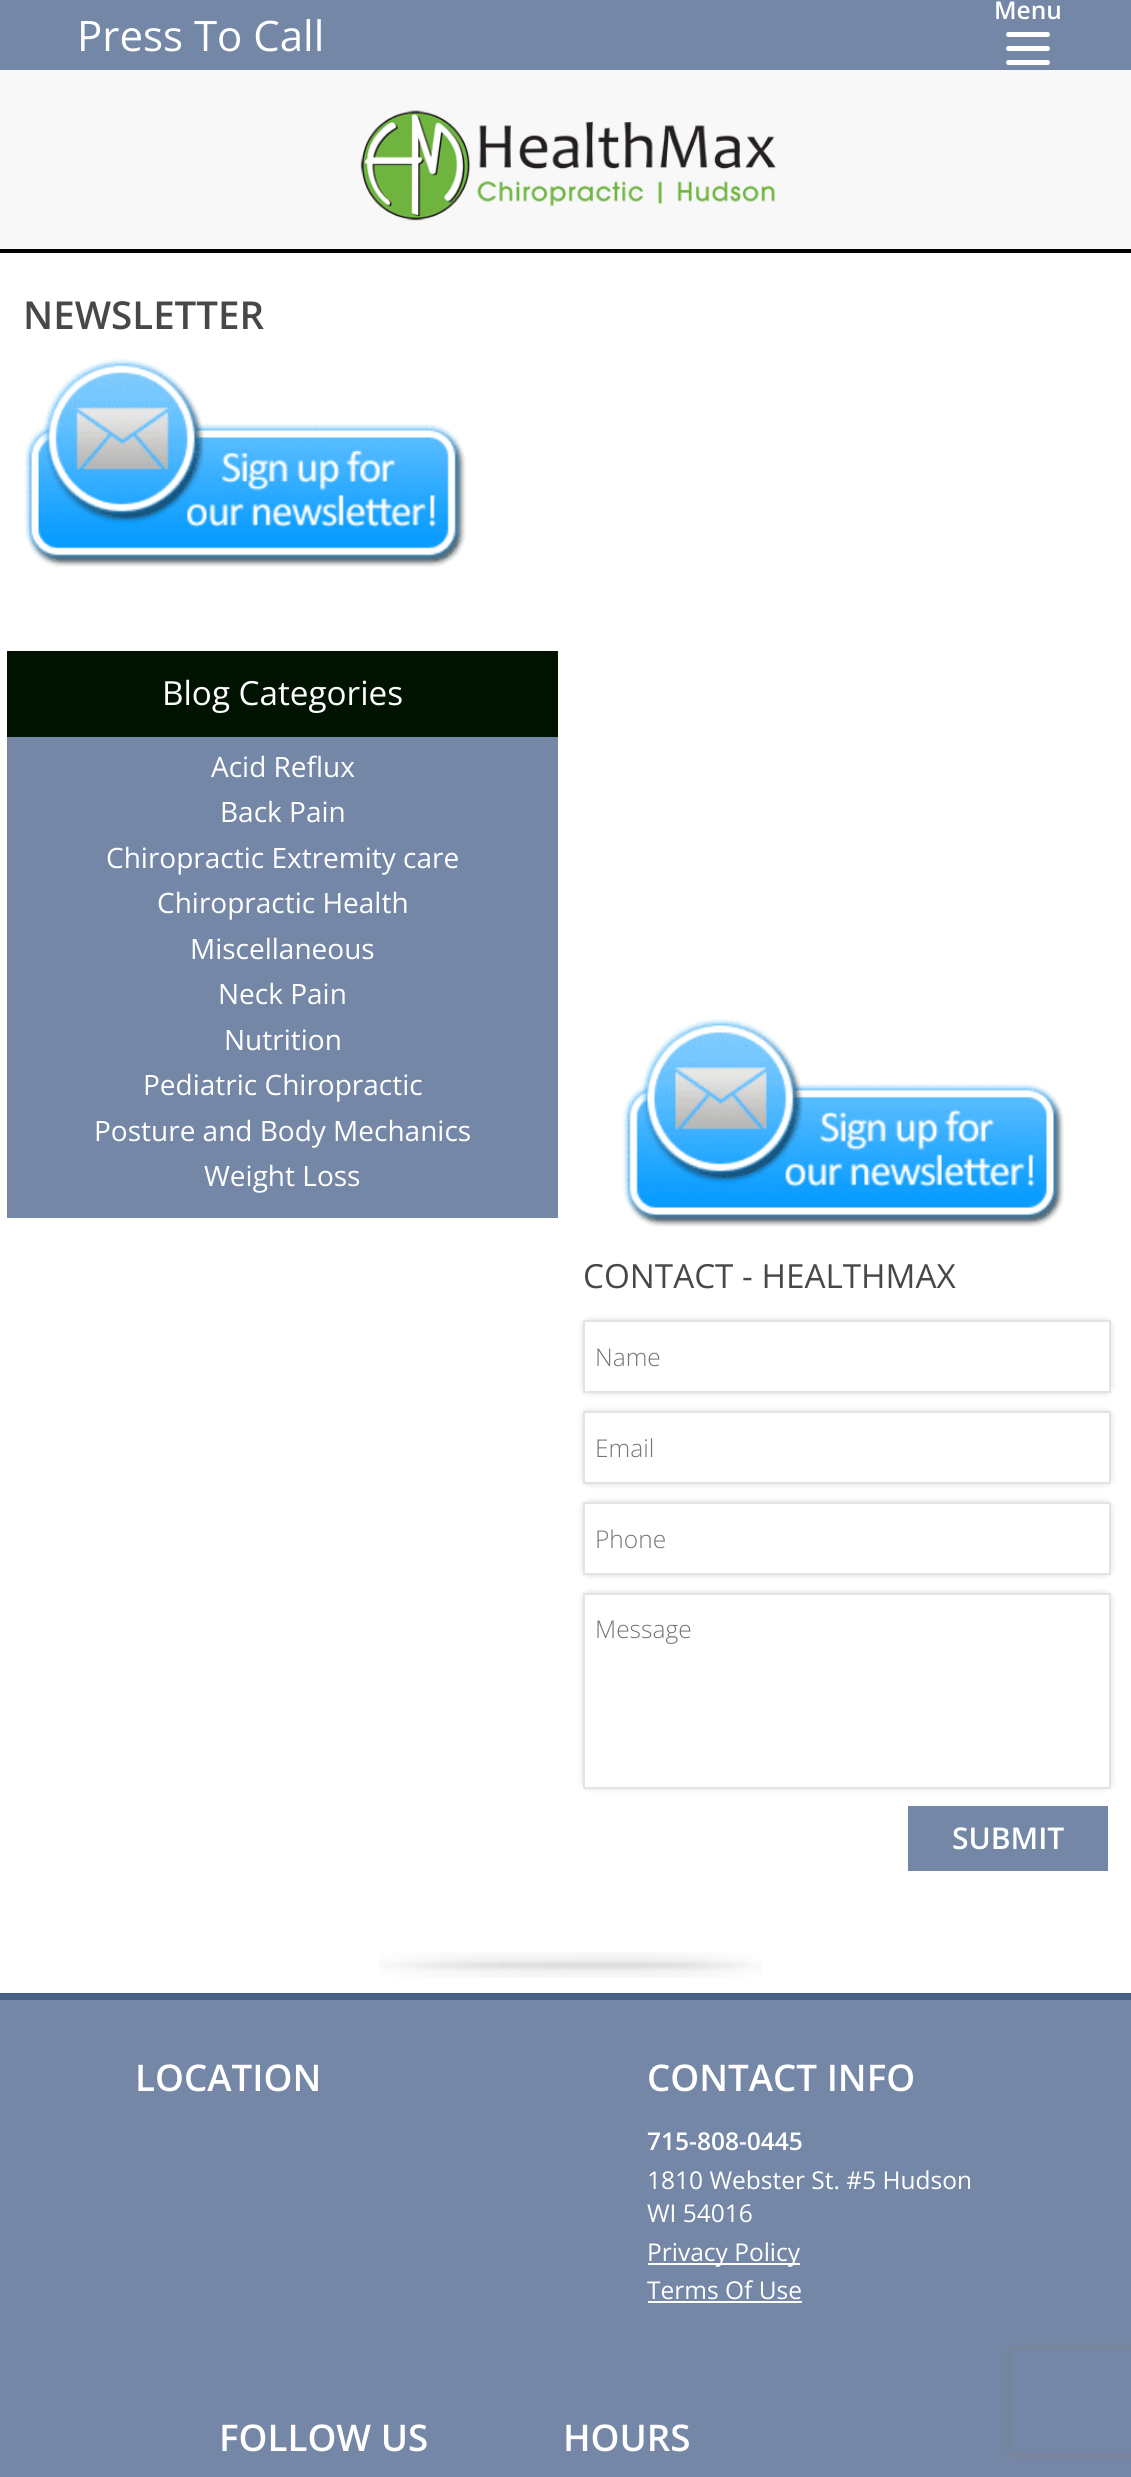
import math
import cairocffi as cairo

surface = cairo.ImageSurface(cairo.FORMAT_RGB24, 1131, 2477)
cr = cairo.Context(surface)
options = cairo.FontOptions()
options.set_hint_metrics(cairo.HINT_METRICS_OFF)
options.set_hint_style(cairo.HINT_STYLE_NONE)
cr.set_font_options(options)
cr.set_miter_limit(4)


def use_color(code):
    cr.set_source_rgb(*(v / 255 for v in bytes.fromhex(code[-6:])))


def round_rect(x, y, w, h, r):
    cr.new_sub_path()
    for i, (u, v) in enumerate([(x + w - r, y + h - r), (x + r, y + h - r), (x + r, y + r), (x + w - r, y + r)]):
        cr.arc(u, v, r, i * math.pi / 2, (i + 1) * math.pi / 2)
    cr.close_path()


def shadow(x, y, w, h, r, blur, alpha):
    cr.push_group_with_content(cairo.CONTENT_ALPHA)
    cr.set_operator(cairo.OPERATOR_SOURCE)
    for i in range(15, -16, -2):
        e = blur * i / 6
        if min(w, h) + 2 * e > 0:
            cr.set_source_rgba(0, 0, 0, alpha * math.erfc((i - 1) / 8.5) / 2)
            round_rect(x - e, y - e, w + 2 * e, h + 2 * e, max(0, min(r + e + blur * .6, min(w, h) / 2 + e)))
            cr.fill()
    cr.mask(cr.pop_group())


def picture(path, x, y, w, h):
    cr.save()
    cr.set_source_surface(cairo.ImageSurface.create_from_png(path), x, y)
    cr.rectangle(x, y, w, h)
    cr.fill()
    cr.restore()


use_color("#ffffff")
cr.paint()
use_color("#7487a7")
cr.rectangle(0, 0, 1131, 70)
cr.fill()
cr.select_font_face("Open Sans SemiBold")
cr.set_font_size(24.5)
use_color("#ffffff")
cr.move_to(994, 19)
cr.show_text("Menu")
round_rect(1006, 46, 44, 5, 2.5)
cr.fill()
round_rect(1006, 32, 44, 5, 2.5)
cr.fill()
round_rect(1006, 60, 44, 5, 2.5)
cr.fill()
cr.select_font_face("Open Sans")
cr.set_font_size(42)
cr.move_to(77, 51)
cr.show_text("Press To Call")
use_color("#f8f8f8")
cr.rectangle(0, 70, 1131, 179)
cr.fill()
use_color("#000000")
cr.rectangle(0, 249, 1131, 4)
cr.fill()
picture("img1.png", 360, 110, 416, 111)
cr.select_font_face("Open Sans SemiBold")
cr.set_font_size(38.5)
use_color("#484848")
cr.move_to(23, 329)
cr.show_text("NEWSLETTER")
picture("img2.png", 24, 358, 442, 209)
picture("img3.png", 379, 1952, 383, 26)
use_color("#7487a7")
cr.rectangle(7, 737, 551, 481)
cr.fill()
use_color("#001200")
cr.rectangle(7, 651, 551, 86)
cr.fill()
cr.select_font_face("Open Sans")
cr.set_font_size(33.25)
use_color("#ffffff")
cr.move_to(162, 705)
cr.show_text("Blog Categories")
cr.set_font_size(28)
cr.move_to(211, 777)
cr.show_text("Acid Reflux")
cr.move_to(220, 822)
cr.show_text("Back Pain")
cr.move_to(106, 868)
cr.show_text("Chiropractic Extremity care")
cr.move_to(157, 913)
cr.show_text("Chiropractic Health")
cr.move_to(190, 959)
cr.show_text("Miscellaneous")
cr.move_to(218, 1004)
cr.show_text("Neck Pain")
cr.move_to(224, 1050)
cr.show_text("Nutrition")
cr.move_to(143, 1095)
cr.show_text("Pediatric Chiropractic")
cr.move_to(94, 1141)
cr.show_text("Posture and Body Mechanics")
cr.move_to(204, 1186)
cr.show_text("Weight Loss")
picture("img4.png", 623, 1018, 441, 209)
cr.set_font_size(33.25)
use_color("#484848")
cr.move_to(583, 1288)
cr.show_text("CONTACT - HEALTHMAX")
cr.save()
cr.set_fill_rule(cairo.FILL_RULE_EVEN_ODD)
cr.new_path()
cr.move_to(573, 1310)
cr.line_to(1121, 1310)
cr.line_to(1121, 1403)
cr.line_to(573, 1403)
cr.close_path()
cr.move_to(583, 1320)
cr.line_to(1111, 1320)
cr.line_to(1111, 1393)
cr.line_to(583, 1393)
cr.close_path()
cr.clip()
use_color("#666666")
shadow(588, 1325, 518, 63, 0, 4.5, 1)
cr.restore()
cr.rectangle(584, 1321, 526, 71)
use_color("#e3e3e3")
cr.stroke()
cr.select_font_face("Open Sans Light")
cr.set_font_size(24.5)
use_color("#757575")
cr.move_to(595, 1366)
cr.show_text("Name")
cr.save()
cr.set_fill_rule(cairo.FILL_RULE_EVEN_ODD)
cr.new_path()
cr.move_to(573, 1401)
cr.line_to(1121, 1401)
cr.line_to(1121, 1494)
cr.line_to(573, 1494)
cr.close_path()
cr.move_to(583, 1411)
cr.line_to(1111, 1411)
cr.line_to(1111, 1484)
cr.line_to(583, 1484)
cr.close_path()
cr.clip()
use_color("#666666")
shadow(588, 1416, 518, 63, 0, 4.5, 1)
cr.restore()
cr.rectangle(584, 1412, 526, 71)
use_color("#e3e3e3")
cr.stroke()
use_color("#757575")
cr.move_to(595, 1457)
cr.show_text("Email")
cr.save()
cr.set_fill_rule(cairo.FILL_RULE_EVEN_ODD)
cr.new_path()
cr.move_to(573, 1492)
cr.line_to(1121, 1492)
cr.line_to(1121, 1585)
cr.line_to(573, 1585)
cr.close_path()
cr.move_to(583, 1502)
cr.line_to(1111, 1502)
cr.line_to(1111, 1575)
cr.line_to(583, 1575)
cr.close_path()
cr.clip()
use_color("#666666")
shadow(588, 1507, 518, 63, 0, 4.5, 1)
cr.restore()
cr.rectangle(584, 1503, 526, 71)
use_color("#e3e3e3")
cr.stroke()
use_color("#757575")
cr.move_to(595, 1548)
cr.show_text("Phone")
use_color("#666666")
shadow(588, 1598, 518, 185, 0, 4.5, 1)
use_color("#ffffff")
cr.rectangle(584, 1594, 526, 194)
cr.fill_preserve()
use_color("#e3e3e3")
cr.stroke()
use_color("#757575")
cr.move_to(595, 1638)
cr.show_text("Message")
use_color("#7487a7")
cr.rectangle(908, 1806, 200, 65)
cr.fill()
cr.select_font_face("Open Sans SemiBold")
cr.set_font_size(30)
use_color("#ffffff")
cr.move_to(952, 1849)
cr.show_text("SUBMIT")
use_color("#7487a7")
cr.rectangle(0, 2000, 1131, 477)
cr.fill()
use_color("#485f86")
cr.rectangle(0, 1993, 1131, 7)
cr.fill()
cr.set_font_size(36.75)
use_color("#ffffff")
cr.move_to(135, 2091)
cr.show_text("LOCATION")
cr.move_to(647, 2091)
cr.show_text("CONTACT INFO")
cr.set_font_size(24.5)
cr.move_to(647, 2150)
cr.show_text("715-808-0445")
cr.select_font_face("Open Sans")
cr.move_to(647, 2189)
cr.show_text("1810 Webster St. #5 Hudson")
cr.move_to(647, 2222)
cr.show_text("WI 54016")
cr.rectangle(648, 2263, 152, 2)
cr.fill()
cr.move_to(647, 2261)
cr.show_text("Privacy Policy")
cr.move_to(647, 2299)
cr.show_text("Terms Of Use")
cr.rectangle(648, 2301, 154, 2)
cr.fill()
cr.select_font_face("Open Sans SemiBold")
cr.set_font_size(36.75)
cr.move_to(219, 2451)
cr.show_text("FOLLOW US")
cr.move_to(563, 2451)
cr.show_text("HOURS")
cr.save()
cr.set_fill_rule(cairo.FILL_RULE_EVEN_ODD)
cr.new_path()
cr.move_to(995, 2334)
cr.line_to(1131, 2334)
cr.line_to(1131, 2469)
cr.line_to(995, 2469)
cr.close_path()
cr.move_to(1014, 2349)
cr.line_to(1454, 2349)
cr.curve_to(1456, 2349, 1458, 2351, 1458, 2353)
cr.line_to(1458, 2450)
cr.curve_to(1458, 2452, 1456, 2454, 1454, 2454)
cr.line_to(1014, 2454)
cr.curve_to(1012, 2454, 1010, 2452, 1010, 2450)
cr.line_to(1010, 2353)
cr.curve_to(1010, 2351, 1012, 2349, 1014, 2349)
cr.close_path()
cr.clip()
use_color("#808080")
shadow(1010, 2349, 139, 105, 4, 4.5, 1)
cr.restore()
surface.write_to_png("result.png")
